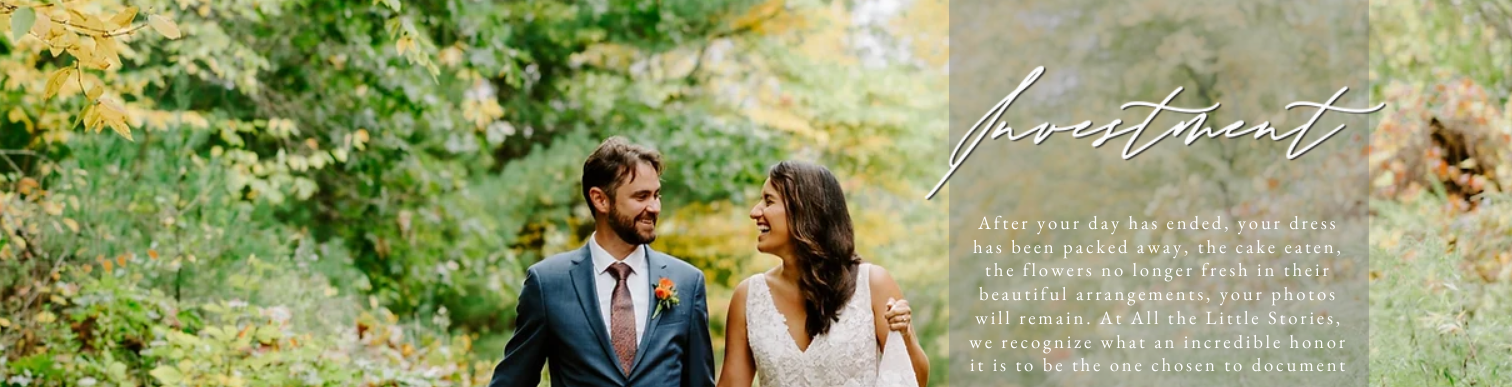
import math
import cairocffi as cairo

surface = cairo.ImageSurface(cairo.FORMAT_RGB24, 1512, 387)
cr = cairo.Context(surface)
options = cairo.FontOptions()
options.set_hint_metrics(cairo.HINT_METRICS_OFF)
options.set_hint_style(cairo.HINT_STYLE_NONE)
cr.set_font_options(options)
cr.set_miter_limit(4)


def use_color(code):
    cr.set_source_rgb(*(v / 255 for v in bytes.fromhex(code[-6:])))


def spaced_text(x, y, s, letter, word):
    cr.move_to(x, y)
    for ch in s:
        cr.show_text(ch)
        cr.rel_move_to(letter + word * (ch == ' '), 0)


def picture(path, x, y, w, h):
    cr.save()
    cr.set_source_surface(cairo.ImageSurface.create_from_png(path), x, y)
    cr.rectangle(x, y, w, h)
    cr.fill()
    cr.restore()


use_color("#ffffff")
cr.paint()
picture("img1.png", 0, 0, 1512, 387)
cr.set_source_rgba(0.506, 0.506, 0.506, 0.45)
cr.rectangle(949, 0, 420, 387)
cr.fill()
picture("img2.png", 924, 65, 463, 137)
cr.select_font_face("EB Garamond")
cr.set_font_size(18.75)
use_color("#ffffff")
spaced_text(978, 229, "After your day has ended, your dress", 2.8, 0)
spaced_text(973, 253, "has been packed away, the cake eaten,", 2.8, 0)
spaced_text(985, 276, "the flowers no longer fresh in their", 2.8, 0)
spaced_text(979, 300, "beautiful arrangements, your photos", 2.8, 0)
spaced_text(975, 324, "will remain. At All the Little Stories,", 2.8, 0)
spaced_text(969, 348, "we recognize what an incredible honor", 2.8, 0)
spaced_text(970, 371, "it is to be the one chosen to document", 2.8, 0)
surface.write_to_png("result.png")
